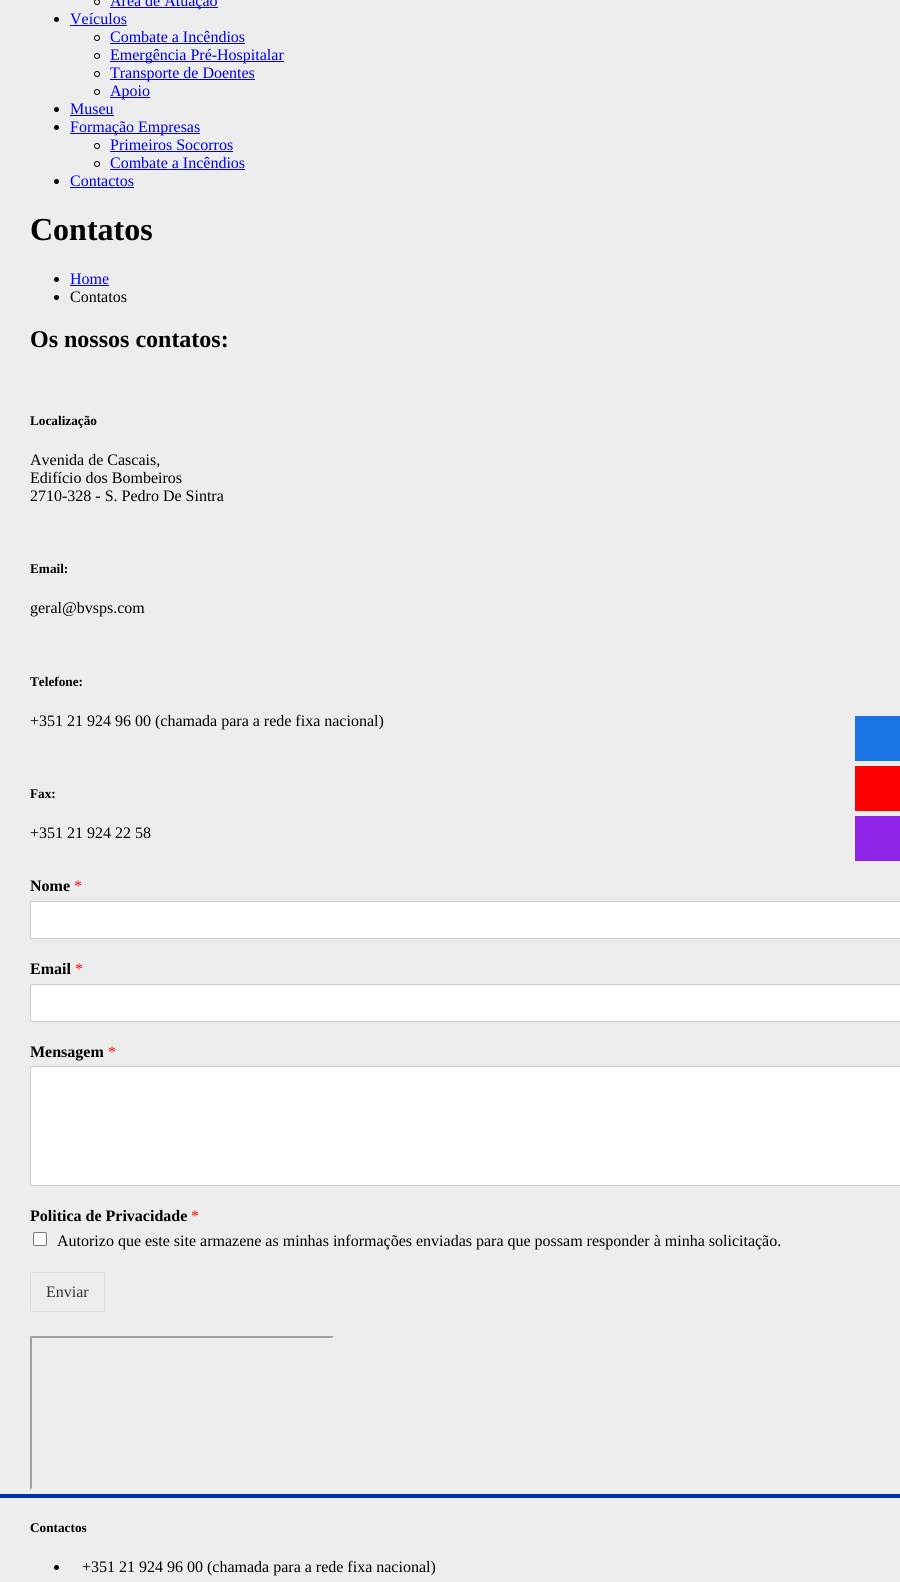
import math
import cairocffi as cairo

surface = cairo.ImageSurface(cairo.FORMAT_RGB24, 900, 1582)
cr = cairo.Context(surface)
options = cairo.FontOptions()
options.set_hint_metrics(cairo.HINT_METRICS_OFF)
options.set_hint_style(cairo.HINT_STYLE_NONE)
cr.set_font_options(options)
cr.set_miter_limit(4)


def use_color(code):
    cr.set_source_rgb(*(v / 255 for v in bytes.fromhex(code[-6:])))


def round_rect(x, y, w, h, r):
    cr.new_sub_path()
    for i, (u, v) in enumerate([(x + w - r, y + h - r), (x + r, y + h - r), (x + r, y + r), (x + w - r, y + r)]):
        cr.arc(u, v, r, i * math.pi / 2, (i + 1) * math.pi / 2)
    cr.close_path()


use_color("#ededed")
cr.paint()
cr.arc(97, 2, 2.5, 0, 2 * math.pi)
use_color("#000000")
cr.set_line_width(1)
cr.stroke()
use_color("#0000ee")
cr.rectangle(110, 7, 108, 1)
cr.fill()
cr.select_font_face("Liberation Serif")
cr.set_font_size(16)
cr.move_to(110, 6)
cr.show_text("Área de Atuação")
use_color("#000000")
cr.new_path()
cr.arc(56.5, 19.5, 2.5, 0, 2 * math.pi)
cr.fill()
use_color("#0000ee")
cr.move_to(70, 24)
cr.show_text("Veículos")
cr.rectangle(70, 25, 57, 1)
cr.fill()
cr.arc(97, 38, 2.5, 0, 2 * math.pi)
use_color("#000000")
cr.stroke()
use_color("#0000ee")
cr.move_to(110, 42)
cr.show_text("Combate a Incêndios")
cr.rectangle(110, 43, 135, 1)
cr.fill()
cr.arc(97, 56, 2.5, 0, 2 * math.pi)
use_color("#000000")
cr.stroke()
use_color("#0000ee")
cr.rectangle(110, 61, 174, 1)
cr.fill()
cr.move_to(110, 60)
cr.show_text("Emergência Pré-Hospitalar")
cr.new_path()
cr.arc(97, 74, 2.5, 0, 2 * math.pi)
use_color("#000000")
cr.stroke()
use_color("#0000ee")
cr.rectangle(110, 79, 145, 1)
cr.fill()
cr.move_to(110, 78)
cr.show_text("Transporte de Doentes")
cr.new_path()
cr.arc(97, 92, 2.5, 0, 2 * math.pi)
use_color("#000000")
cr.stroke()
use_color("#0000ee")
cr.rectangle(110, 97, 40, 1)
cr.fill()
cr.move_to(110, 96)
cr.show_text("Apoio")
use_color("#000000")
cr.new_path()
cr.arc(56.5, 109.5, 2.5, 0, 2 * math.pi)
cr.fill()
use_color("#0000ee")
cr.move_to(70, 114)
cr.show_text("Museu")
cr.rectangle(70, 115, 44, 1)
cr.fill()
use_color("#000000")
cr.arc(56.5, 127.5, 2.5, 0, 2 * math.pi)
cr.fill()
use_color("#0000ee")
cr.rectangle(70, 133, 130, 1)
cr.fill()
cr.move_to(70, 132)
cr.show_text("Formação Empresas")
cr.new_path()
cr.arc(97, 146, 2.5, 0, 2 * math.pi)
use_color("#000000")
cr.stroke()
use_color("#0000ee")
cr.move_to(110, 150)
cr.show_text("Primeiros Socorros")
cr.rectangle(110, 151, 123, 1)
cr.fill()
cr.arc(97, 164, 2.5, 0, 2 * math.pi)
use_color("#000000")
cr.stroke()
use_color("#0000ee")
cr.move_to(110, 168)
cr.show_text("Combate a Incêndios")
cr.rectangle(110, 169, 135, 1)
cr.fill()
use_color("#000000")
cr.arc(56.5, 181.5, 2.5, 0, 2 * math.pi)
cr.fill()
use_color("#0000ee")
cr.move_to(70, 186)
cr.show_text("Contactos")
cr.rectangle(70, 187, 64, 1)
cr.fill()
cr.select_font_face("Liberation Serif", cairo.FONT_SLANT_NORMAL, cairo.FONT_WEIGHT_BOLD)
cr.set_font_size(32)
use_color("#000000")
cr.move_to(30, 240)
cr.show_text("Contatos")
cr.new_path()
cr.arc(56.5, 279.5, 2.5, 0, 2 * math.pi)
cr.fill()
cr.select_font_face("Liberation Serif")
cr.set_font_size(16)
use_color("#0000ee")
cr.move_to(70, 284)
cr.show_text("Home")
cr.rectangle(70, 285, 39, 1)
cr.fill()
use_color("#000000")
cr.arc(56.5, 297.5, 2.5, 0, 2 * math.pi)
cr.fill()
cr.move_to(70, 302)
cr.show_text("Contatos")
cr.select_font_face("Liberation Serif", cairo.FONT_SLANT_NORMAL, cairo.FONT_WEIGHT_BOLD)
cr.set_font_size(24)
cr.move_to(30, 347)
cr.show_text("Os nossos contatos:")
cr.set_font_size(13.25)
cr.move_to(30, 425)
cr.show_text("Localização")
cr.select_font_face("Liberation Serif")
cr.set_font_size(16)
cr.move_to(30, 465)
cr.show_text("Avenida de Cascais,")
cr.move_to(30, 483)
cr.show_text("Edifício dos Bombeiros")
cr.move_to(30, 501)
cr.show_text("2710-328 - S. Pedro De Sintra")
cr.select_font_face("Liberation Serif", cairo.FONT_SLANT_NORMAL, cairo.FONT_WEIGHT_BOLD)
cr.set_font_size(13.25)
cr.move_to(30, 573)
cr.show_text("Email:")
cr.select_font_face("Liberation Serif")
cr.set_font_size(16)
cr.move_to(30, 613)
cr.show_text("geral@bvsps.com")
cr.select_font_face("Liberation Serif", cairo.FONT_SLANT_NORMAL, cairo.FONT_WEIGHT_BOLD)
cr.set_font_size(13.25)
cr.move_to(30, 686)
cr.show_text("Telefone:")
cr.select_font_face("Liberation Serif")
cr.set_font_size(16)
cr.move_to(30, 726)
cr.show_text("+351 21 924 96 00 (chamada para a rede fixa nacional)")
cr.select_font_face("Liberation Serif", cairo.FONT_SLANT_NORMAL, cairo.FONT_WEIGHT_BOLD)
cr.set_font_size(13.25)
cr.move_to(30, 798)
cr.show_text("Fax:")
cr.select_font_face("Liberation Serif")
cr.set_font_size(16)
cr.move_to(30, 838)
cr.show_text("+351 21 924 22 58")
cr.select_font_face("Liberation Serif", cairo.FONT_SLANT_NORMAL, cairo.FONT_WEIGHT_BOLD)
cr.move_to(30, 891)
cr.show_text("Nome")
cr.select_font_face("Liberation Serif")
use_color("#ff0000")
cr.move_to(74, 891)
cr.show_text("*")
use_color("#ffffff")
round_rect(30.5, 901.5, 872, 37, 1.5)
cr.fill_preserve()
use_color("#cccccc")
cr.stroke()
cr.select_font_face("Liberation Serif", cairo.FONT_SLANT_NORMAL, cairo.FONT_WEIGHT_BOLD)
use_color("#000000")
cr.move_to(30, 974)
cr.show_text("Email")
cr.select_font_face("Liberation Serif")
use_color("#ff0000")
cr.move_to(75, 974)
cr.show_text("*")
use_color("#ffffff")
round_rect(30.5, 984.5, 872, 37, 1.5)
cr.fill_preserve()
use_color("#cccccc")
cr.stroke()
cr.select_font_face("Liberation Serif", cairo.FONT_SLANT_NORMAL, cairo.FONT_WEIGHT_BOLD)
use_color("#000000")
cr.move_to(30, 1057)
cr.show_text("Mensagem")
cr.select_font_face("Liberation Serif")
use_color("#ff0000")
cr.move_to(108, 1057)
cr.show_text("*")
use_color("#ffffff")
round_rect(30.5, 1066.5, 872, 119, 1.5)
cr.fill_preserve()
use_color("#cccccc")
cr.stroke()
cr.select_font_face("Liberation Serif", cairo.FONT_SLANT_NORMAL, cairo.FONT_WEIGHT_BOLD)
use_color("#000000")
cr.move_to(30, 1221)
cr.show_text("Politica de Privacidade")
cr.select_font_face("Liberation Serif")
use_color("#ff0000")
cr.move_to(191, 1221)
cr.show_text("*")
use_color("#ffffff")
round_rect(33.5, 1232.5, 13, 13, 1.5)
cr.fill_preserve()
use_color("#767676")
cr.stroke()
use_color("#000000")
cr.move_to(57, 1246)
cr.show_text("Autorizo que este site armazene as minhas informações enviadas para que possam responder à minha solicitação.")
cr.rectangle(30.5, 1272.5, 74, 39)
use_color("#dddddd")
cr.stroke()
use_color("#333333")
cr.move_to(46, 1297)
cr.show_text("Enviar")
use_color("#9f9f9f")
cr.new_path()
cr.move_to(30, 1336)
cr.line_to(334, 1336)
cr.line_to(332, 1338)
cr.line_to(32, 1338)
cr.close_path()
cr.fill()
cr.new_path()
cr.move_to(30, 1490)
cr.line_to(30, 1336)
cr.line_to(32, 1338)
cr.line_to(32, 1488)
cr.close_path()
cr.fill()
use_color("#eeeeee")
cr.new_path()
cr.move_to(334, 1336)
cr.line_to(334, 1490)
cr.line_to(332, 1488)
cr.line_to(332, 1338)
cr.close_path()
cr.fill()
use_color("#002fad")
cr.rectangle(0, 1494, 900, 4)
cr.fill()
cr.select_font_face("Liberation Serif", cairo.FONT_SLANT_NORMAL, cairo.FONT_WEIGHT_BOLD)
cr.set_font_size(13.25)
use_color("#000000")
cr.move_to(30, 1532)
cr.show_text("Contactos")
cr.new_path()
cr.arc(56.5, 1567.5, 2.5, 0, 2 * math.pi)
cr.fill()
cr.select_font_face("Liberation Serif")
cr.set_font_size(16)
cr.move_to(82, 1572)
cr.show_text("+351 21 924 96 00 (chamada para a rede fixa nacional)")
use_color("#1b74e4")
cr.rectangle(855, 716, 45, 45)
cr.fill()
use_color("#ff0000")
cr.rectangle(855, 766, 45, 45)
cr.fill()
use_color("#8e24e5")
cr.rectangle(855, 816, 45, 45)
cr.fill()
surface.write_to_png("result.png")
